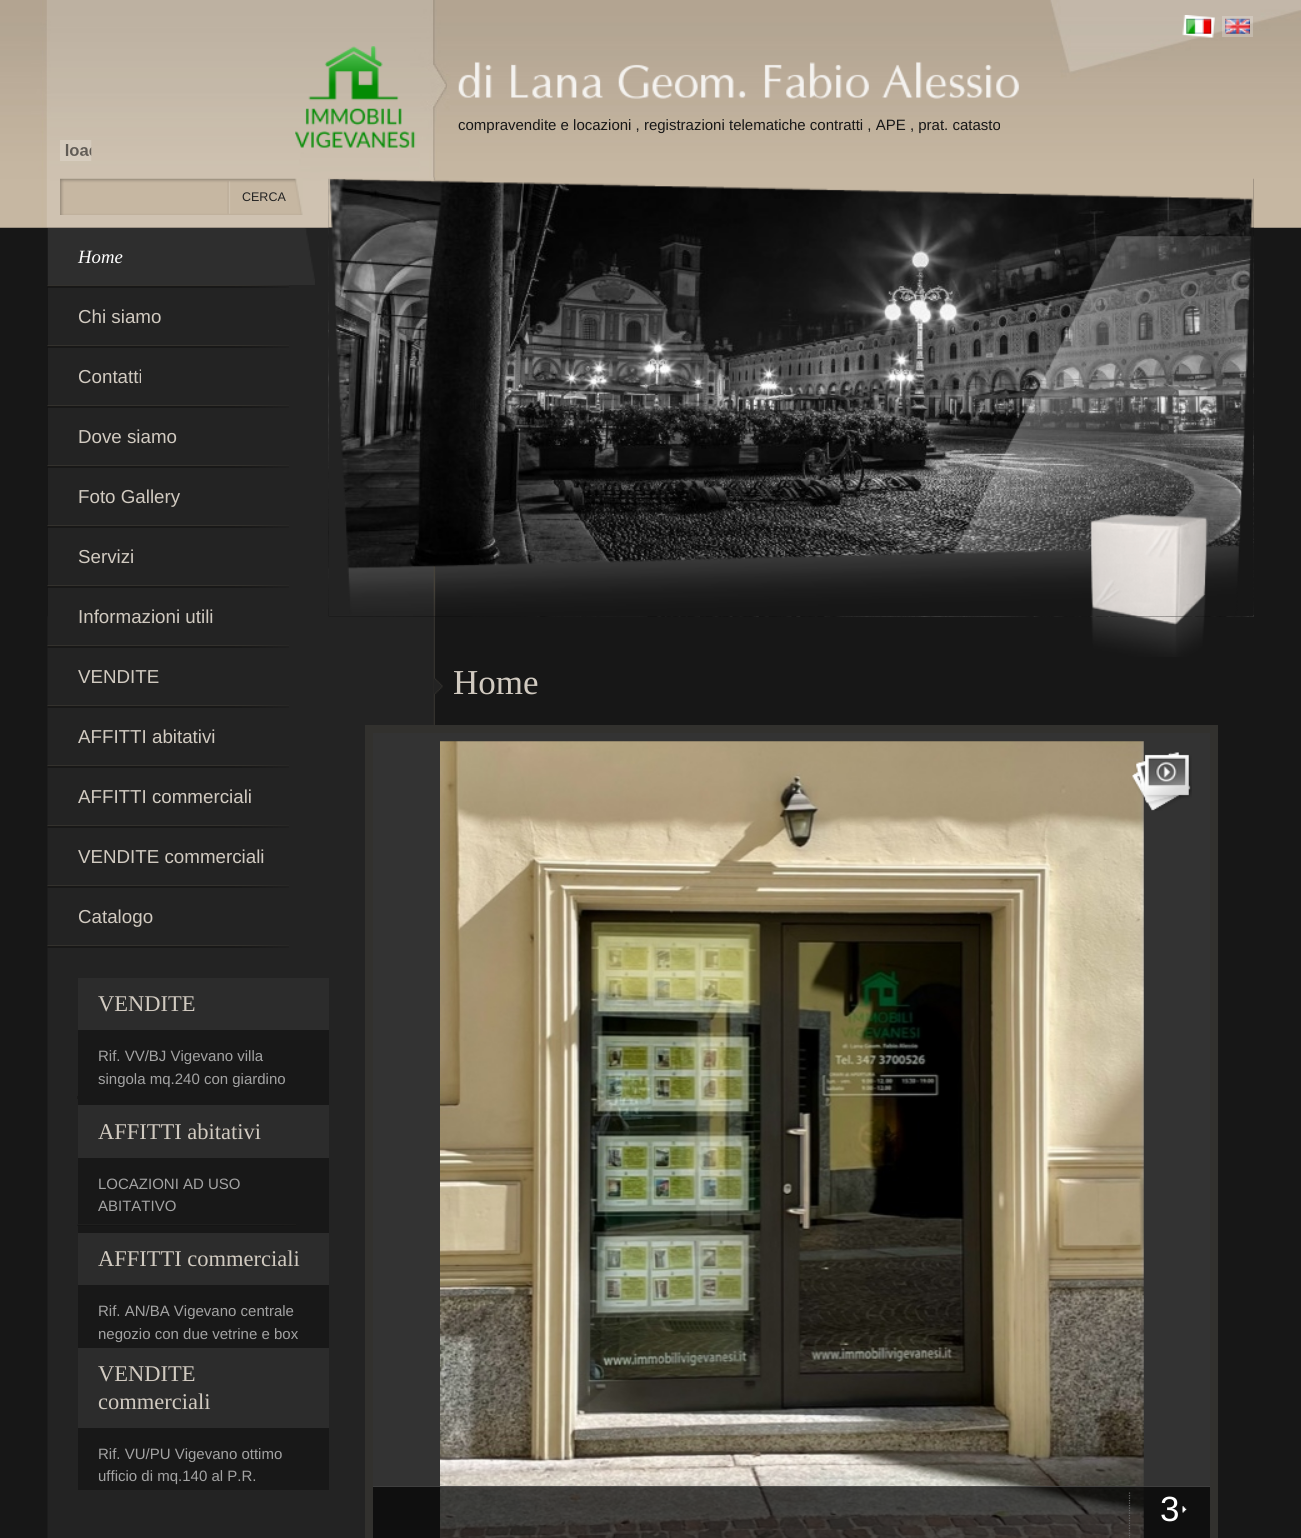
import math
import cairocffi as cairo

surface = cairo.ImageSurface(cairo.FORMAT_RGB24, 1301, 1538)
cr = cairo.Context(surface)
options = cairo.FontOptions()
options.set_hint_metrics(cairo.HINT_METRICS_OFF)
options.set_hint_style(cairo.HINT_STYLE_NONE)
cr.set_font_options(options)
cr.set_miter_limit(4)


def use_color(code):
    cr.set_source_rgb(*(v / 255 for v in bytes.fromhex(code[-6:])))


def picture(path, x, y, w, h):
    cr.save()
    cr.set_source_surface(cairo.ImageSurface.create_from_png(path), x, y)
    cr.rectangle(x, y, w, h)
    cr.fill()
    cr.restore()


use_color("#171717")
cr.paint()
picture("img1.png", 0, 227, 1301, 1)
picture("img2.png", 0, 0, 1301, 228)
picture("img3.png", 1182, 15, 33, 23)
picture("img4.png", 1186, 18, 26, 16)
cr.set_source_rgba(1, 1, 1, 0.23)
cr.rectangle(1222, 16, 31, 21)
cr.fill()
picture("img5.png", 1225, 18, 25, 16)
picture("img6.png", 295, 46, 121, 102)
picture("img7.png", 458, 61, 561, 38)
cr.select_font_face("Liberation Sans")
cr.set_font_size(15)
use_color("#171717")
cr.move_to(458, 130)
cr.show_text("compravendite e locazioni , registrazioni telematiche contratti , APE , prat. catasto")
use_color("#232323")
cr.rectangle(48, 228, 281, 1310)
cr.fill()
picture("img19.png", 329, 616, 106, 922)
picture("img20.png", 1091, 616, 114, 41)
picture("img8.png", 328, 178, 926, 439)
picture("img10.png", 923, 236, 331, 381)
picture("img11.png", 328, 513, 926, 104)
picture("img9.png", 328, 177, 926, 438)
picture("img12.png", 60, 178, 243, 37)
cr.set_font_size(12.5)
cr.move_to(242, 201)
cr.show_text("CERCA")
picture("img13.png", 47, 616, 1, 922)
picture("img14.png", 60, 140, 32, 21)
picture("img15.png", 47, 285, 242, 3)
picture("img16.png", 47, 228, 268, 57)
cr.select_font_face("Liberation Serif", cairo.FONT_SLANT_ITALIC)
cr.set_font_size(18.75)
use_color("#ffffff")
cr.move_to(78, 263)
cr.show_text("Home")
picture("img15.png", 47, 345, 242, 3)
cr.select_font_face("Liberation Sans")
use_color("#d1cac0")
cr.move_to(78, 323)
cr.show_text("Chi siamo")
picture("img15.png", 47, 405, 242, 3)
cr.move_to(78, 383)
cr.show_text("Contatti")
picture("img15.png", 47, 465, 242, 3)
cr.move_to(78, 443)
cr.show_text("Dove siamo")
picture("img15.png", 47, 525, 242, 3)
cr.move_to(78, 503)
cr.show_text("Foto Gallery")
picture("img15.png", 47, 585, 242, 3)
cr.move_to(78, 563)
cr.show_text("Servizi")
picture("img17.png", 47, 645, 242, 3)
cr.move_to(78, 623)
cr.show_text("Informazioni utili")
picture("img17.png", 47, 705, 242, 3)
cr.move_to(78, 683)
cr.show_text("VENDITE")
picture("img17.png", 47, 765, 242, 3)
cr.move_to(78, 743)
cr.show_text("AFFITTI abitativi")
picture("img17.png", 47, 825, 242, 3)
cr.move_to(78, 803)
cr.show_text("AFFITTI commerciali")
picture("img17.png", 47, 885, 242, 3)
cr.move_to(78, 863)
cr.show_text("VENDITE commerciali")
picture("img17.png", 47, 945, 242, 3)
cr.move_to(78, 923)
cr.show_text("Catalogo")
use_color("#181818")
cr.rectangle(78, 1030, 251, 460)
cr.fill()
use_color("#2c2c2c")
cr.rectangle(78, 978, 251, 52)
cr.fill()
cr.select_font_face("Liberation Serif")
cr.set_font_size(22.5)
use_color("#d1cac0")
cr.move_to(98, 1011)
cr.show_text("VENDITE")
use_color("#1a1a19")
cr.rectangle(77, 1096, 1, 3)
cr.fill()
cr.select_font_face("Liberation Sans")
cr.set_font_size(15)
use_color("#a3a3a3")
cr.move_to(98, 1061)
cr.show_text("Rif. VV/BJ Vigevano villa")
cr.move_to(98, 1084)
cr.show_text("singola mq.240 con giardino")
use_color("#2c2c2c")
cr.rectangle(78, 1105, 251, 53)
cr.fill()
cr.select_font_face("Liberation Serif")
cr.set_font_size(22.5)
use_color("#d1cac0")
cr.move_to(98, 1139)
cr.show_text("AFFITTI abitativi")
picture("img18.png", 77, 1224, 219, 2)
cr.select_font_face("Liberation Sans")
cr.set_font_size(15)
use_color("#a3a3a3")
cr.move_to(98, 1189)
cr.show_text("LOCAZIONI AD USO")
cr.move_to(98, 1211)
cr.show_text("ABITATIVO")
use_color("#2c2c2c")
cr.rectangle(78, 1233, 251, 52)
cr.fill()
cr.select_font_face("Liberation Serif")
cr.set_font_size(22.5)
use_color("#d1cac0")
cr.move_to(98, 1266)
cr.show_text("AFFITTI commerciali")
cr.select_font_face("Liberation Sans")
cr.set_font_size(15)
use_color("#a3a3a3")
cr.move_to(98, 1316)
cr.show_text("Rif. AN/BA Vigevano centrale")
cr.move_to(98, 1339)
cr.show_text("negozio con due vetrine e box")
use_color("#2c2c2c")
cr.rectangle(78, 1348, 251, 80)
cr.fill()
cr.select_font_face("Liberation Serif")
cr.set_font_size(22.5)
use_color("#d1cac0")
cr.move_to(98, 1381)
cr.show_text("VENDITE")
cr.move_to(98, 1409)
cr.show_text("commerciali")
cr.select_font_face("Liberation Sans")
cr.set_font_size(15)
use_color("#a3a3a3")
cr.move_to(98, 1459)
cr.show_text("Rif. VU/PU Vigevano ottimo")
cr.move_to(98, 1481)
cr.show_text("ufficio di mq.140 al P.R.")
picture("img21.png", 434, 678, 9, 16)
cr.select_font_face("Liberation Serif")
cr.set_font_size(35)
use_color("#d1cac0")
cr.move_to(453, 694)
cr.show_text("Home")
use_color("#32312e")
cr.rectangle(365, 725, 853, 813)
cr.fill()
use_color("#333333")
cr.rectangle(373, 733, 837, 805)
cr.fill()
use_color("#32312e")
cr.rectangle(440, 741, 704, 797)
cr.fill()
picture("img23.png", 440, 741, 704, 797)
picture("img22.png", 1132, 752, 60, 59)
cr.set_source_rgba(0, 0, 0, 0.7)
cr.rectangle(373, 1486, 837, 52)
cr.fill()
cr.set_source_rgba(0.333, 0.333, 0.333, 0.7)
cr.rectangle(373, 1486, 837, 1)
cr.fill()
cr.new_path()
cr.move_to(1129.5, 1492.5)
cr.line_to(1129.5, 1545)
use_color("#666666")
cr.set_line_width(1.2)
cr.set_dash([1.25, 1.25])
cr.stroke()
cr.select_font_face("Liberation Sans")
use_color("#ffffff")
cr.move_to(1160, 1521)
cr.show_text("3")
picture("img24.png", 1182, 1506, 5, 7)
surface.write_to_png("result.png")
